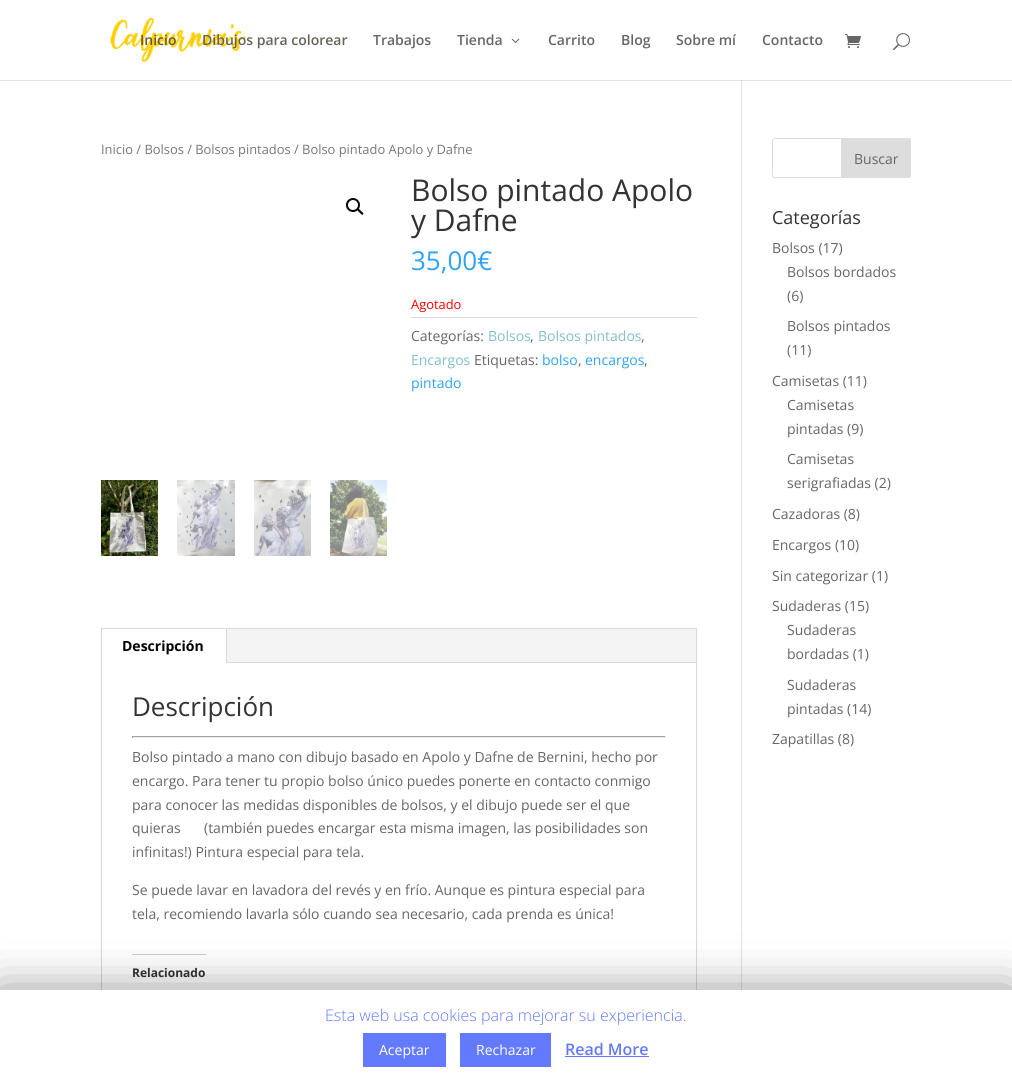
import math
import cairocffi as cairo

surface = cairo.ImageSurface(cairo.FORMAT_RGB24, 1012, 1085)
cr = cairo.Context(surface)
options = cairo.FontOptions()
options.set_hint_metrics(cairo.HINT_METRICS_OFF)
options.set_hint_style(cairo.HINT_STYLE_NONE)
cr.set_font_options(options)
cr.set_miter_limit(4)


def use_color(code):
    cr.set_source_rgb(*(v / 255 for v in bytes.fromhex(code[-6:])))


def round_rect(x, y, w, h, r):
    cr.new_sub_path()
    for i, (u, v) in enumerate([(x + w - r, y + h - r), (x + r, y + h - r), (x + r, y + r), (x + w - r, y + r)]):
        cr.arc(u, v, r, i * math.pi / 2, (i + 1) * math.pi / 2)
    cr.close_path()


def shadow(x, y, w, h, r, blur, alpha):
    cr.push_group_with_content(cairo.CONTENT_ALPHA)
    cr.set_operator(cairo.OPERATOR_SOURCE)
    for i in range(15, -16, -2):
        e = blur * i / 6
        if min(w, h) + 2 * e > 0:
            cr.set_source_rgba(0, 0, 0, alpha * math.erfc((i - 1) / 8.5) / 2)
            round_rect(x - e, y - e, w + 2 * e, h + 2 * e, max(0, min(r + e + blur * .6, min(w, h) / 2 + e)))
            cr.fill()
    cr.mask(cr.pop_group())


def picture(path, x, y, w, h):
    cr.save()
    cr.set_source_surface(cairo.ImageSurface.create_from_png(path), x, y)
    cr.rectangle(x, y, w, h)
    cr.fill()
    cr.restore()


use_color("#ffffff")
cr.paint()
use_color("#e6e6e6")
cr.rectangle(0, 80, 1012, 1)
cr.fill()
picture("img1.png", 110, 18, 136, 44)
cr.select_font_face("Open Sans SemiBold")
cr.set_font_size(14)
use_color("#665a29")
cr.move_to(140, 45)
cr.show_text("Inicio")
use_color("#666356")
cr.move_to(202, 45)
cr.show_text("Dibujos para colorear")
use_color("#666666")
cr.move_to(373, 45)
cr.show_text("Trabajos")
cr.move_to(457, 45)
cr.show_text("Tienda")
picture("img2.png", 511, 38, 9, 5)
cr.move_to(548, 45)
cr.show_text("Carrito")
cr.move_to(621, 45)
cr.show_text("Blog")
cr.move_to(676, 45)
cr.show_text("Sobre mí")
cr.move_to(762, 45)
cr.show_text("Contacto")
picture("img3.png", 845, 34, 16, 14)
picture("img4.png", 893, 33, 17, 18)
use_color("#e2e2e2")
cr.rectangle(741, 80, 1, 910)
cr.fill()
use_color("#cbcbcb")
cr.rectangle(741, 80, 1, 1)
cr.fill()
cr.select_font_face("Open Sans")
cr.set_font_size(12.9)
use_color("#777777")
cr.move_to(101, 154)
cr.show_text("Inicio / Bolsos / Bolsos pintados / Bolso pintado Apolo y Dafne")
cr.new_path()
cr.arc(353, 205, 6, 0, 2 * math.pi)
use_color("#000000")
cr.stroke()
cr.new_path()
cr.move_to(357.5, 209)
cr.curve_to(358.5, 207.5, 360.5, 210.5, 361, 211)
cr.curve_to(361.5, 211.5, 364.5, 213.5, 363, 214.5)
cr.curve_to(362, 215.5, 360, 213, 359.5, 212.5)
cr.curve_to(359, 212, 356.5, 210, 357.5, 209)
cr.close_path()
cr.fill()
picture("img5.png", 101, 480, 57, 76)
picture("img6.png", 177, 480, 58, 76)
picture("img7.png", 254, 480, 57, 76)
picture("img8.png", 330, 480, 57, 76)
cr.set_font_size(30)
use_color("#333333")
cr.move_to(411, 201)
cr.show_text("Bolso pintado Apolo")
cr.move_to(411, 231)
cr.show_text("y Dafne")
cr.set_font_size(26)
use_color("#2ea3f2")
cr.move_to(411, 270)
cr.show_text("35,00€")
cr.set_font_size(12.9)
use_color("#ff0000")
cr.move_to(411, 309)
cr.show_text("Agotado")
use_color("#dadada")
cr.rectangle(411, 317, 286, 1)
cr.fill()
cr.set_font_size(14)
use_color("#666666")
cr.move_to(411, 341)
cr.show_text("Categorías:")
use_color("#82c0c7")
cr.move_to(488, 341)
cr.show_text("Bolsos")
use_color("#666666")
cr.move_to(530, 341)
cr.show_text(",")
use_color("#82c0c7")
cr.move_to(538, 341)
cr.show_text("Bolsos pintados")
use_color("#666666")
cr.move_to(641, 341)
cr.show_text(",")
use_color("#82c0c7")
cr.move_to(411, 365)
cr.show_text("Encargos")
use_color("#666666")
cr.move_to(474, 365)
cr.show_text("Etiquetas:")
use_color("#2ea3f2")
cr.move_to(542, 365)
cr.show_text("bolso")
use_color("#666666")
cr.move_to(578, 365)
cr.show_text(",")
use_color("#2ea3f2")
cr.move_to(585, 365)
cr.show_text("encargos")
use_color("#666666")
cr.move_to(644, 365)
cr.show_text(",")
use_color("#2ea3f2")
cr.move_to(411, 388)
cr.show_text("pintado")
cr.rectangle(101.5, 628.5, 595, 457)
use_color("#d9d9d9")
cr.set_line_width(1)
cr.stroke()
use_color("#f4f4f4")
cr.rectangle(227, 629, 469, 33)
cr.fill()
use_color("#d9d9d9")
cr.rectangle(226, 629, 1, 34)
cr.fill()
cr.select_font_face("Open Sans", cairo.FONT_SLANT_NORMAL, cairo.FONT_WEIGHT_BOLD)
use_color("#000000")
cr.move_to(122, 651)
cr.show_text("Descripción")
use_color("#d9d9d9")
cr.rectangle(227, 662, 469, 1)
cr.fill()
cr.select_font_face("Open Sans")
cr.set_font_size(26)
use_color("#333333")
cr.move_to(132, 716)
cr.show_text("Descripción")
use_color("#9f9f9f")
cr.rectangle(132, 736, 534, 1)
cr.fill()
use_color("#eeeeee")
cr.rectangle(665, 736, 1, 2)
cr.fill()
cr.rectangle(132, 737, 534, 1)
cr.fill()
use_color("#9f9f9f")
cr.rectangle(132, 736, 1, 2)
cr.fill()
cr.set_font_size(14)
use_color("#666666")
cr.move_to(132, 762)
cr.show_text("Bolso pintado a mano con dibujo basado en Apolo y Dafne de Bernini, hecho por")
cr.move_to(132, 786)
cr.show_text("encargo. Para tener tu propio bolso único puedes ponerte en contacto conmigo")
cr.move_to(132, 810)
cr.show_text("para conocer las medidas disponibles de bolsos, y el dibujo puede ser el que")
cr.move_to(132, 833)
cr.show_text("quieras")
cr.move_to(204, 833)
cr.show_text("(también puedes encargar esta misma imagen, las posibilidades son")
cr.move_to(132, 857)
cr.show_text("infinitas!) Pintura especial para tela.")
cr.move_to(132, 895)
cr.show_text("Se puede lavar en lavadora del revés y en frío. Aunque es pintura especial para")
cr.move_to(132, 919)
cr.show_text("tela, recomiendo lavarla sólo cuando sea necesario, cada prenda es única!")
use_color("#cccccc")
cr.rectangle(132, 954, 74, 1)
cr.fill()
cr.select_font_face("Open Sans", cairo.FONT_SLANT_NORMAL, cairo.FONT_WEIGHT_BOLD)
cr.set_font_size(12)
use_color("#333333")
cr.move_to(132, 977)
cr.show_text("Relacionado")
round_rect(772.5, 138.5, 138, 39, 2.5)
use_color("#dddddd")
cr.stroke()
cr.new_path()
cr.move_to(841.5, 138.5)
cr.line_to(908, 138.5)
cr.curve_to(909.5, 138.5, 910.5, 139.5, 910.5, 141)
cr.line_to(910.5, 175)
cr.curve_to(910.5, 176.5, 909.5, 177.5, 908, 177.5)
cr.line_to(841.5, 177.5)
cr.close_path()
cr.fill_preserve()
cr.stroke()
cr.select_font_face("Open Sans")
cr.set_font_size(14)
use_color("#666666")
cr.move_to(854, 164)
cr.show_text("Buscar")
cr.set_font_size(18)
use_color("#333333")
cr.move_to(772, 224)
cr.show_text("Categorías")
cr.set_font_size(14)
use_color("#666666")
cr.move_to(772, 253)
cr.show_text("Bolsos (17)")
cr.move_to(787, 277)
cr.show_text("Bolsos bordados")
cr.move_to(787, 301)
cr.show_text("(6)")
cr.move_to(787, 331)
cr.show_text("Bolsos pintados")
cr.move_to(787, 355)
cr.show_text("(11)")
cr.move_to(772, 386)
cr.show_text("Camisetas (11)")
cr.move_to(787, 410)
cr.show_text("Camisetas")
cr.move_to(787, 434)
cr.show_text("pintadas (9)")
cr.move_to(787, 464)
cr.show_text("Camisetas")
cr.move_to(787, 488)
cr.show_text("serigrafiadas (2)")
cr.move_to(772, 519)
cr.show_text("Cazadoras (8)")
cr.move_to(772, 550)
cr.show_text("Encargos (10)")
cr.move_to(772, 581)
cr.show_text("Sin categorizar (1)")
cr.move_to(772, 611)
cr.show_text("Sudaderas (15)")
cr.move_to(787, 635)
cr.show_text("Sudaderas")
cr.move_to(787, 659)
cr.show_text("bordadas (1)")
cr.move_to(787, 690)
cr.show_text("Sudaderas")
cr.move_to(787, 714)
cr.show_text("pintadas (14)")
cr.move_to(772, 744)
cr.show_text("Zapatillas (8)")
use_color("#000000")
shadow(0, 995, 1012, 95, 0, 25, 0.5)
use_color("#ffffff")
cr.rectangle(0, 990, 1012, 95)
cr.fill()
cr.select_font_face("Open Sans Light")
cr.set_font_size(16)
use_color("#637aff")
cr.move_to(325, 1021)
cr.show_text("Esta web usa cookies para mejorar su experiencia.")
cr.rectangle(363, 1033, 83, 34)
cr.fill()
cr.select_font_face("Open Sans")
cr.set_font_size(14)
use_color("#ffffff")
cr.move_to(379, 1055)
cr.show_text("Aceptar")
use_color("#637aff")
cr.rectangle(460, 1033, 91, 34)
cr.fill()
use_color("#ffffff")
cr.move_to(476, 1055)
cr.show_text("Rechazar")
cr.select_font_face("Open Sans SemiBold")
cr.set_font_size(16)
use_color("#637aff")
cr.move_to(565, 1055)
cr.show_text("Read More")
cr.rectangle(565, 1056, 84, 1)
cr.fill()
surface.write_to_png("result.png")
